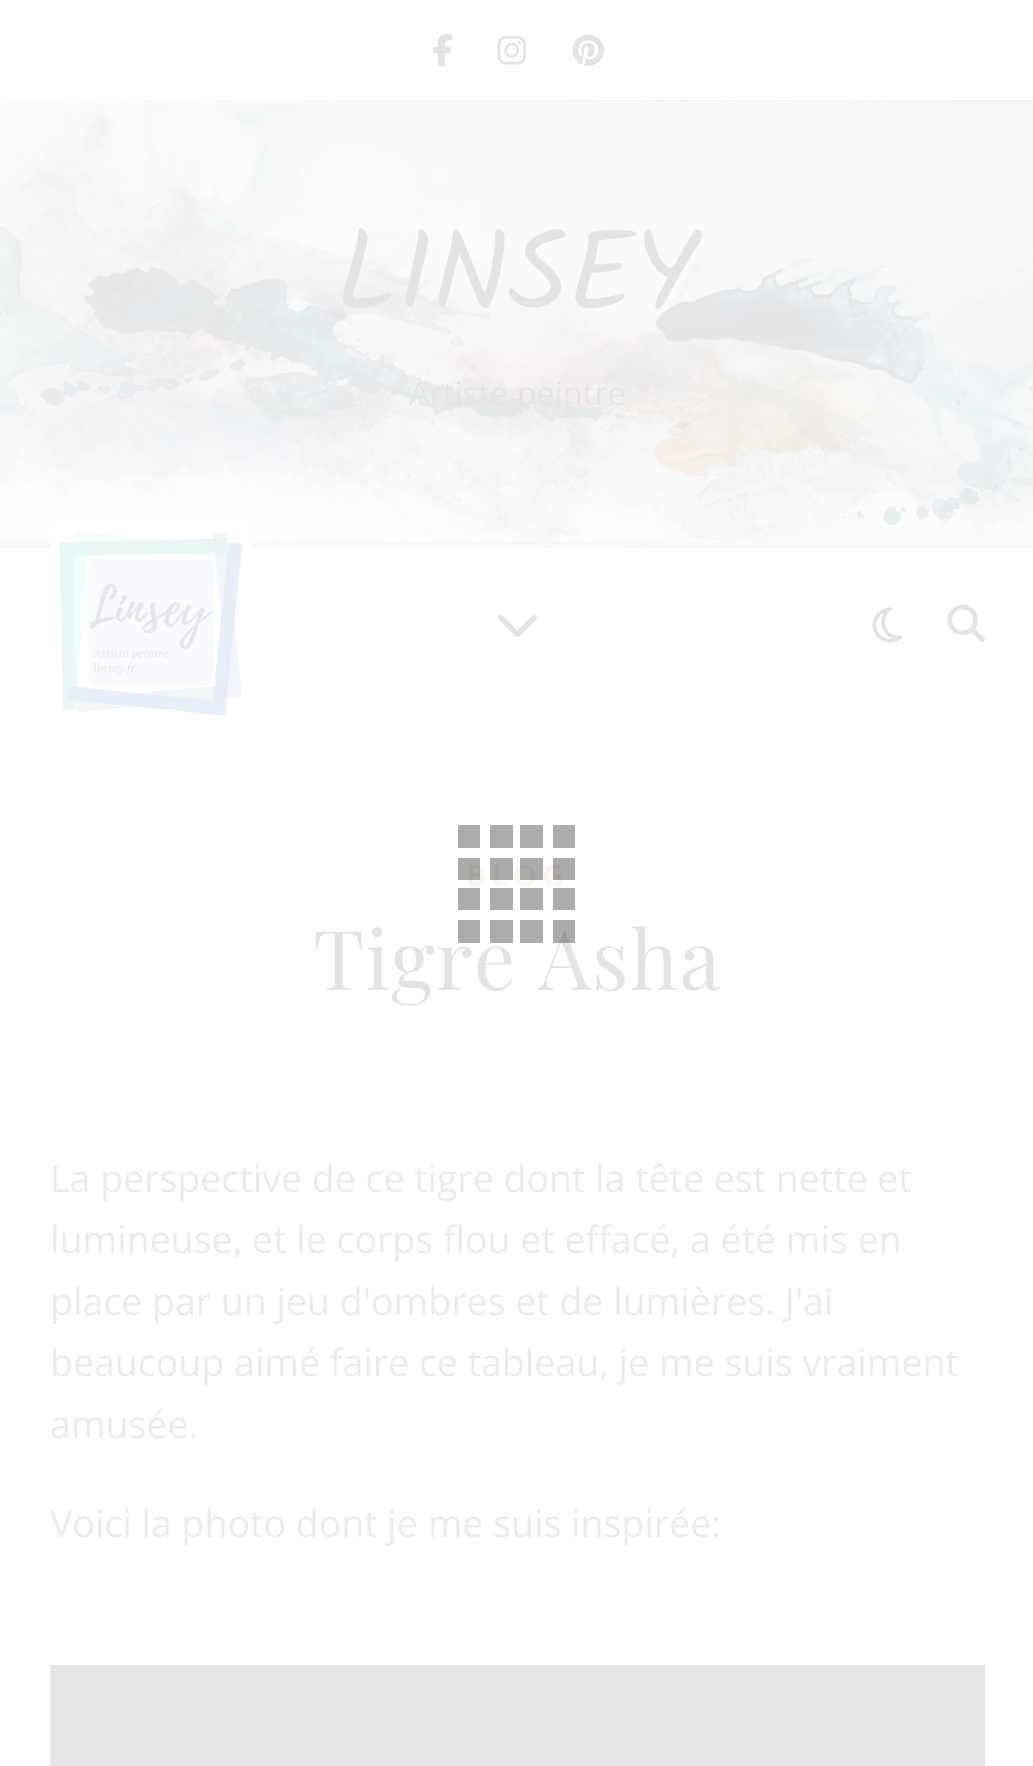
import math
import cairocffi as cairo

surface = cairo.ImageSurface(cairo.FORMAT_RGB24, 1033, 1766)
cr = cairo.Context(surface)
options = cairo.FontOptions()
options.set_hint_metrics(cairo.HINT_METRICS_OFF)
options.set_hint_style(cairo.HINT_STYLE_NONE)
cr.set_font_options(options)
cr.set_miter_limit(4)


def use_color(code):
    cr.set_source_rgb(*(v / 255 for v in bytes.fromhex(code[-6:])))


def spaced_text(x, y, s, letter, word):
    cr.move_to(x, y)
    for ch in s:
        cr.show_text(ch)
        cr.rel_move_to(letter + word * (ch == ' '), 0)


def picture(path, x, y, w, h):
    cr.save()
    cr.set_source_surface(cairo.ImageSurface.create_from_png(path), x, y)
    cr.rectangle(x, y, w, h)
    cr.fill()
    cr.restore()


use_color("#ffffff")
cr.paint()
picture("img1.png", 433, 34, 19, 33)
picture("img2.png", 497, 36, 29, 29)
picture("img3.png", 572, 34, 32, 33)
picture("img4.png", 0, 100, 1033, 448)
cr.select_font_face("Kalam")
cr.set_font_size(112.5)
use_color("#e3e3e3")
cr.move_to(336, 310)
cr.show_text("LINSEY")
cr.select_font_face("Open Sans")
cr.set_font_size(32.5)
cr.move_to(409, 405)
cr.show_text("Artiste peintre")
picture("img5.png", 50, 522, 200, 195)
picture("img6.png", 497, 614, 41, 24)
picture("img7.png", 872, 607, 31, 36)
picture("img8.png", 947, 604, 38, 39)
cr.select_font_face("Open Sans", cairo.FONT_SLANT_NORMAL, cairo.FONT_WEIGHT_BOLD)
cr.set_font_size(30)
use_color("#f9f4ec")
spaced_text(466, 886, "BLOG", 5, 0)
cr.select_font_face("Playfair Display")
cr.set_font_size(82.5)
use_color("#e3e3e3")
spaced_text(313, 990, "Tigre Asha", 1.25, 0)
cr.select_font_face("Open Sans")
cr.set_font_size(37.5)
use_color("#ebebeb")
cr.move_to(50, 1192)
cr.show_text("La perspective de ce tigre dont la tête est nette et")
cr.move_to(50, 1253)
cr.show_text("lumineuse, et le corps flou et effacé, a été mis en")
cr.move_to(50, 1315)
cr.show_text("place par un jeu d'ombres et de lumières. J'ai")
cr.move_to(50, 1376)
cr.show_text("beaucoup aimé faire ce tableau, je me suis vraiment")
cr.move_to(50, 1438)
cr.show_text("amusée.")
cr.move_to(50, 1537)
cr.show_text("Voici la photo dont je me suis inspirée:")
picture("img9.png", 50, 1665, 935, 101)
use_color("#acacac")
cr.rectangle(458, 825, 22, 23)
cr.fill()
cr.rectangle(490, 825, 23, 23)
cr.fill()
cr.rectangle(520, 825, 23, 23)
cr.fill()
cr.rectangle(553, 825, 22, 23)
cr.fill()
cr.set_source_rgba(0.2, 0.2, 0.2, 0.41)
cr.rectangle(458, 858, 22, 22)
cr.fill()
cr.rectangle(490, 858, 23, 22)
cr.fill()
cr.rectangle(520, 858, 23, 22)
cr.fill()
cr.rectangle(553, 858, 22, 22)
cr.fill()
use_color("#acacac")
cr.rectangle(458, 888, 22, 22)
cr.fill()
cr.rectangle(490, 888, 23, 22)
cr.fill()
cr.rectangle(520, 888, 23, 22)
cr.fill()
cr.rectangle(553, 888, 22, 22)
cr.fill()
cr.rectangle(458, 920, 22, 23)
cr.fill()
cr.rectangle(490, 920, 23, 23)
cr.fill()
cr.rectangle(520, 920, 23, 23)
cr.fill()
cr.set_source_rgba(0.2, 0.2, 0.2, 0.41)
cr.rectangle(553, 920, 22, 23)
cr.fill()
surface.write_to_png("result.png")
